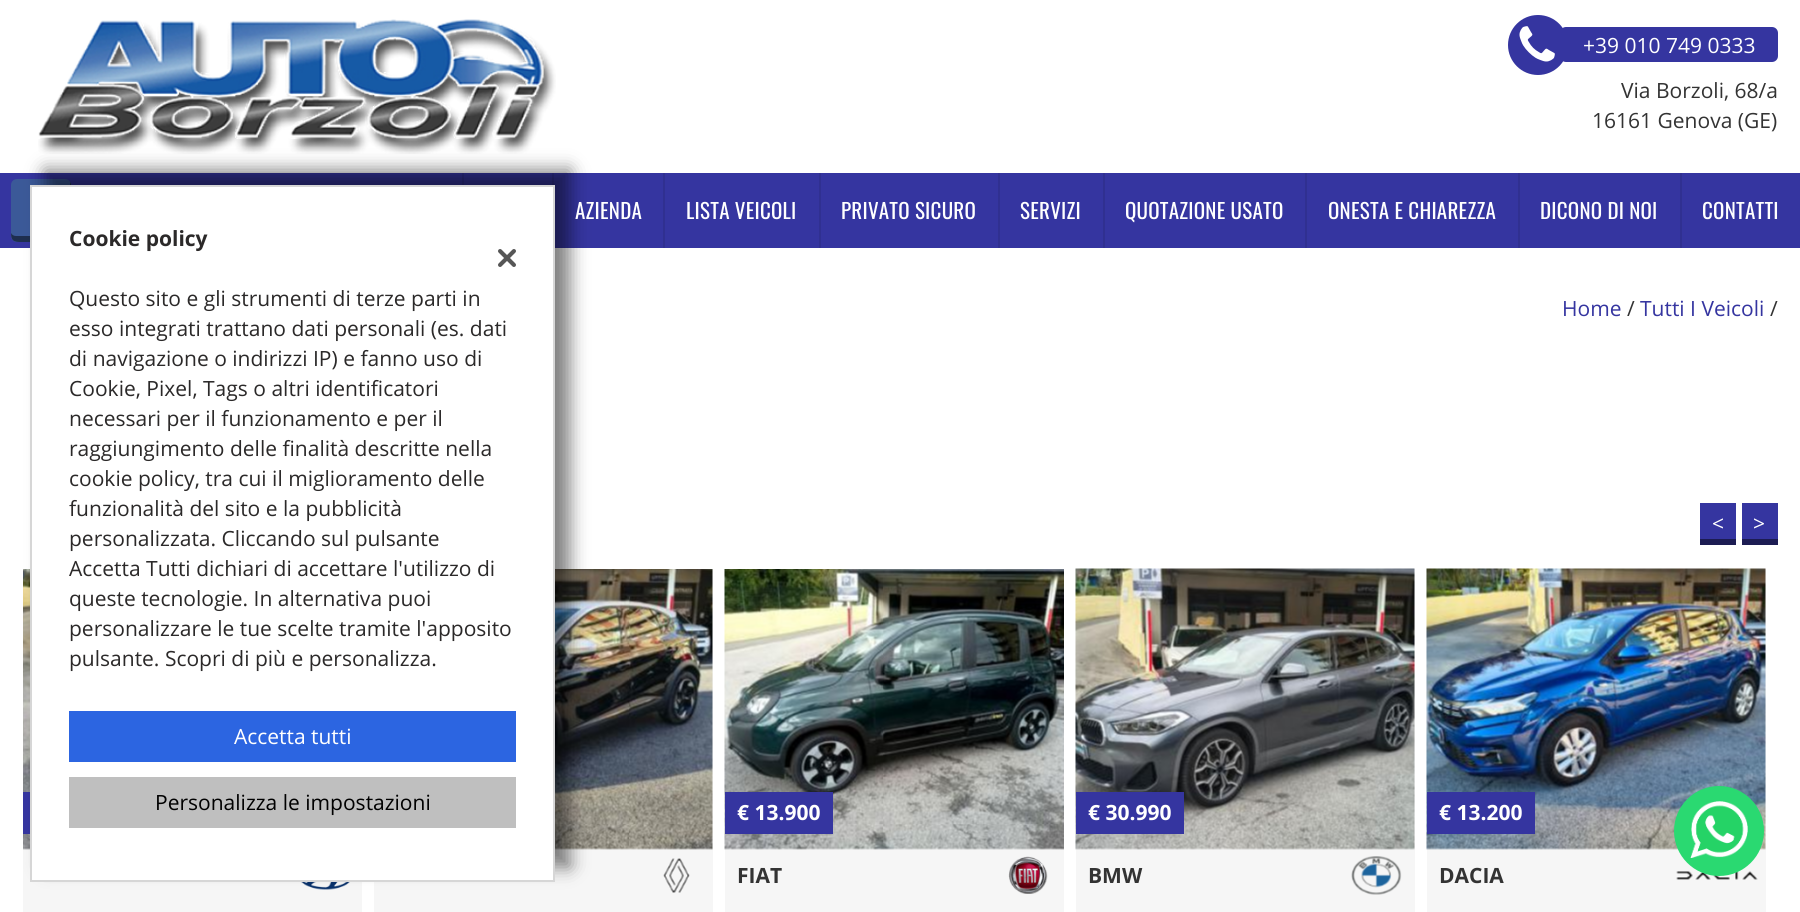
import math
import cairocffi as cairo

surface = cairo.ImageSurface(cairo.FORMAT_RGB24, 1800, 912)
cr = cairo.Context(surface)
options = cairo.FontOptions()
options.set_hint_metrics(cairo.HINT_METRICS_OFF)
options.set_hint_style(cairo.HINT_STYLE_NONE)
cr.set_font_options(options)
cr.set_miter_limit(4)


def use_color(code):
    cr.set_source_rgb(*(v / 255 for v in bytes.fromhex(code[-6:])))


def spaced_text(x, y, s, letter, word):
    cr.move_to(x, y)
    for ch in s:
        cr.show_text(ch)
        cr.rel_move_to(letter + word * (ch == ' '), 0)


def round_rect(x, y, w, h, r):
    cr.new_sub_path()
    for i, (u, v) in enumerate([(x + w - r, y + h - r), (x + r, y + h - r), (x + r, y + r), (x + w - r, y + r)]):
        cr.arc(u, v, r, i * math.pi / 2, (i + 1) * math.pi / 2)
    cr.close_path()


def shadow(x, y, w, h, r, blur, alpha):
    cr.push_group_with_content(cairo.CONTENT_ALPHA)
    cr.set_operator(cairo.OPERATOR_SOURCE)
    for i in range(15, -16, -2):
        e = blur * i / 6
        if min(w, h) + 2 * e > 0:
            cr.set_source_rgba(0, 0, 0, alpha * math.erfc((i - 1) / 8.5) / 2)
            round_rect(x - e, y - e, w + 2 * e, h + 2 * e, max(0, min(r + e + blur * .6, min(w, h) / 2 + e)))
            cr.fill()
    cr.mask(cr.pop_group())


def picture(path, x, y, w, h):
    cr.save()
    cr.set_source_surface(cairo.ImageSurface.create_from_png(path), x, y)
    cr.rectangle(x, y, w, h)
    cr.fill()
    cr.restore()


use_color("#ffffff")
cr.paint()
picture("img2.png", 38, 19, 518, 135)
use_color("#3535a0")
cr.rectangle(0, 173, 1800, 75)
cr.fill()
use_color("#3b5998")
round_rect(11, 179, 60, 63, 6)
cr.fill()
use_color("#1e2e4f")
cr.new_path()
cr.move_to(11, 233)
cr.curve_to(11, 243, 16, 242, 25, 242)
cr.line_to(41, 242)
cr.curve_to(77, 242, 71, 247, 71, 210)
cr.line_to(71, 194)
cr.curve_to(71, 191, 72, 185, 70, 182)
cr.line_to(70, 230)
cr.curve_to(70, 233, 68, 236, 64, 236)
cr.line_to(16, 236)
cr.curve_to(14, 236, 12, 235, 11, 233)
cr.close_path()
cr.fill()
use_color("#303091")
cr.rectangle(462, 173, 2, 12)
cr.fill()
cr.rectangle(552, 173, 2, 12)
cr.fill()
use_color("#f6f6f6")
cr.rectangle(23, 848, 339, 64)
cr.fill()
picture("img4.png", 23, 569, 7, 281)
use_color("#3535a0")
cr.rectangle(23, 792, 7, 42)
cr.fill()
picture("img5.png", 301, 882, 49, 8)
use_color("#f6f6f6")
cr.rectangle(374, 569, 339, 343)
cr.fill()
picture("img6.png", 555, 569, 158, 281)
use_color("#000000")
shadow(45, 170, 525, 697, 0, 9, 0.5)
use_color("#ffffff")
cr.rectangle(31, 186, 523, 695)
cr.fill_preserve()
use_color("#d6d6d6")
cr.stroke()
cr.select_font_face("Open Sans", cairo.FONT_SLANT_NORMAL, cairo.FONT_WEIGHT_BOLD)
cr.set_font_size(21)
use_color("#2b2929")
cr.move_to(69, 246)
cr.show_text("Cookie policy")
cr.select_font_face("Open Sans")
cr.move_to(69, 306)
cr.show_text("Questo sito e gli strumenti di terze parti in")
cr.move_to(69, 336)
cr.show_text("esso integrati trattano dati personali (es. dati")
cr.move_to(69, 366)
cr.show_text("di navigazione o indirizzi IP) e fanno uso di")
cr.move_to(69, 396)
cr.show_text("Cookie, Pixel, Tags o altri identificatori")
cr.move_to(69, 426)
cr.show_text("necessari per il funzionamento e per il")
cr.move_to(69, 456)
cr.show_text("raggiungimento delle finalità descritte nella")
cr.move_to(69, 486)
cr.show_text("cookie policy, tra cui il miglioramento delle")
cr.move_to(69, 516)
cr.show_text("funzionalità del sito e la pubblicità")
cr.move_to(69, 546)
cr.show_text("personalizzata. Cliccando sul pulsante")
cr.move_to(69, 576)
cr.show_text("Accetta Tutti dichiari di accettare l'utilizzo di")
cr.move_to(69, 606)
cr.show_text("queste tecnologie. In alternativa puoi")
cr.move_to(69, 636)
cr.show_text("personalizzare le tue scelte tramite l'apposito")
cr.move_to(69, 666)
cr.show_text("pulsante. Scopri di più e personalizza.")
picture("img1.png", 498, 249, 18, 18)
use_color("#2c65e1")
cr.rectangle(69, 711, 447, 51)
cr.fill()
use_color("#ffffff")
cr.move_to(234, 744)
cr.show_text("Accetta tutti")
use_color("#bfbfbf")
cr.rectangle(69, 777, 447, 51)
cr.fill()
use_color("#000000")
cr.move_to(155, 810)
cr.show_text("Personalizza le impostazioni")
use_color("#3535a0")
cr.new_path()
cr.arc(1538, 45, 30, 0, 2 * math.pi)
cr.fill()
picture("img3.png", 1519, 26, 36, 36)
round_rect(1560, 27, 218, 35, 6)
cr.fill()
use_color("#ffffff")
cr.move_to(1583, 53)
cr.show_text("+39 010 749 0333")
use_color("#333333")
cr.move_to(1621, 98)
cr.show_text("Via Borzoli, 68/a")
cr.move_to(1592, 128)
cr.show_text("16161 Genova (GE)")
cr.select_font_face("Oswald")
use_color("#ffffff")
spaced_text(575, 219, "AZIENDA", 0.25, 0)
use_color("#303091")
cr.rectangle(663, 173, 2, 75)
cr.fill()
use_color("#ffffff")
spaced_text(686, 219, "LISTA VEICOLI", 0.25, 0)
use_color("#303091")
cr.rectangle(819, 173, 2, 75)
cr.fill()
use_color("#ffffff")
spaced_text(841, 219, "PRIVATO SICURO", 0.25, 0)
use_color("#303091")
cr.rectangle(998, 173, 2, 75)
cr.fill()
use_color("#ffffff")
spaced_text(1020, 219, "SERVIZI", 0.25, 0)
use_color("#303091")
cr.rectangle(1103, 173, 2, 75)
cr.fill()
use_color("#ffffff")
spaced_text(1125, 219, "QUOTAZIONE USATO", 0.25, 0)
use_color("#303091")
cr.rectangle(1305, 173, 2, 75)
cr.fill()
use_color("#ffffff")
spaced_text(1328, 219, "ONESTA E CHIAREZZA", 0.25, 0)
use_color("#303091")
cr.rectangle(1518, 173, 2, 75)
cr.fill()
use_color("#ffffff")
spaced_text(1540, 219, "DICONO DI NOI", 0.25, 0)
use_color("#303091")
cr.rectangle(1680, 173, 2, 75)
cr.fill()
use_color("#ffffff")
spaced_text(1702, 219, "CONTATTI", 0.25, 0)
cr.select_font_face("Open Sans")
use_color("#3535a0")
cr.move_to(1562, 316)
cr.show_text("Home")
use_color("#333333")
cr.move_to(1627, 316)
cr.show_text("/")
use_color("#3535a0")
cr.move_to(1640, 316)
cr.show_text("Tutti I Veicoli")
use_color("#333333")
cr.move_to(1770, 316)
cr.show_text("/")
use_color("#3535a0")
cr.rectangle(1700, 503, 36, 36)
cr.fill()
use_color("#1c1c53")
cr.rectangle(1700, 539, 36, 6)
cr.fill()
use_color("#ffffff")
cr.move_to(1712, 531)
cr.show_text("<")
use_color("#3535a0")
cr.rectangle(1742, 503, 36, 36)
cr.fill()
use_color("#1c1c53")
cr.rectangle(1742, 539, 36, 6)
cr.fill()
use_color("#ffffff")
cr.move_to(1753, 531)
cr.show_text(">")
picture("img7.png", 663, 858, 27, 35)
use_color("#f6f6f6")
cr.rectangle(725, 848, 339, 64)
cr.fill()
picture("img8.png", 724, 569, 340, 281)
use_color("#3535a0")
cr.rectangle(725, 792, 108, 42)
cr.fill()
cr.select_font_face("Open Sans", cairo.FONT_SLANT_NORMAL, cairo.FONT_WEIGHT_BOLD)
use_color("#ffffff")
cr.move_to(737, 820)
cr.show_text("€ 13.900")
use_color("#333333")
cr.move_to(737, 883)
cr.show_text("FIAT")
picture("img9.png", 1008, 856, 40, 38)
use_color("#f6f6f6")
cr.rectangle(1076, 569, 339, 343)
cr.fill()
picture("img10.png", 1075, 568, 340, 282)
use_color("#3535a0")
cr.rectangle(1076, 792, 108, 42)
cr.fill()
use_color("#ffffff")
cr.move_to(1088, 820)
cr.show_text("€ 30.990")
use_color("#333333")
cr.move_to(1088, 883)
cr.show_text("BMW")
picture("img11.png", 1351, 856, 51, 39)
use_color("#f6f6f6")
cr.rectangle(1427, 569, 339, 343)
cr.fill()
picture("img12.png", 1426, 568, 340, 282)
use_color("#3535a0")
cr.rectangle(1427, 792, 108, 42)
cr.fill()
use_color("#ffffff")
cr.move_to(1439, 820)
cr.show_text("€ 13.200")
use_color("#333333")
cr.move_to(1439, 883)
cr.show_text("DACIA")
picture("img13.png", 1676, 871, 82, 9)
use_color("#2ad971")
cr.arc(1719, 831, 45, 0, 2 * math.pi)
cr.fill()
picture("img14.png", 1690, 801, 58, 57)
surface.write_to_png("result.png")
